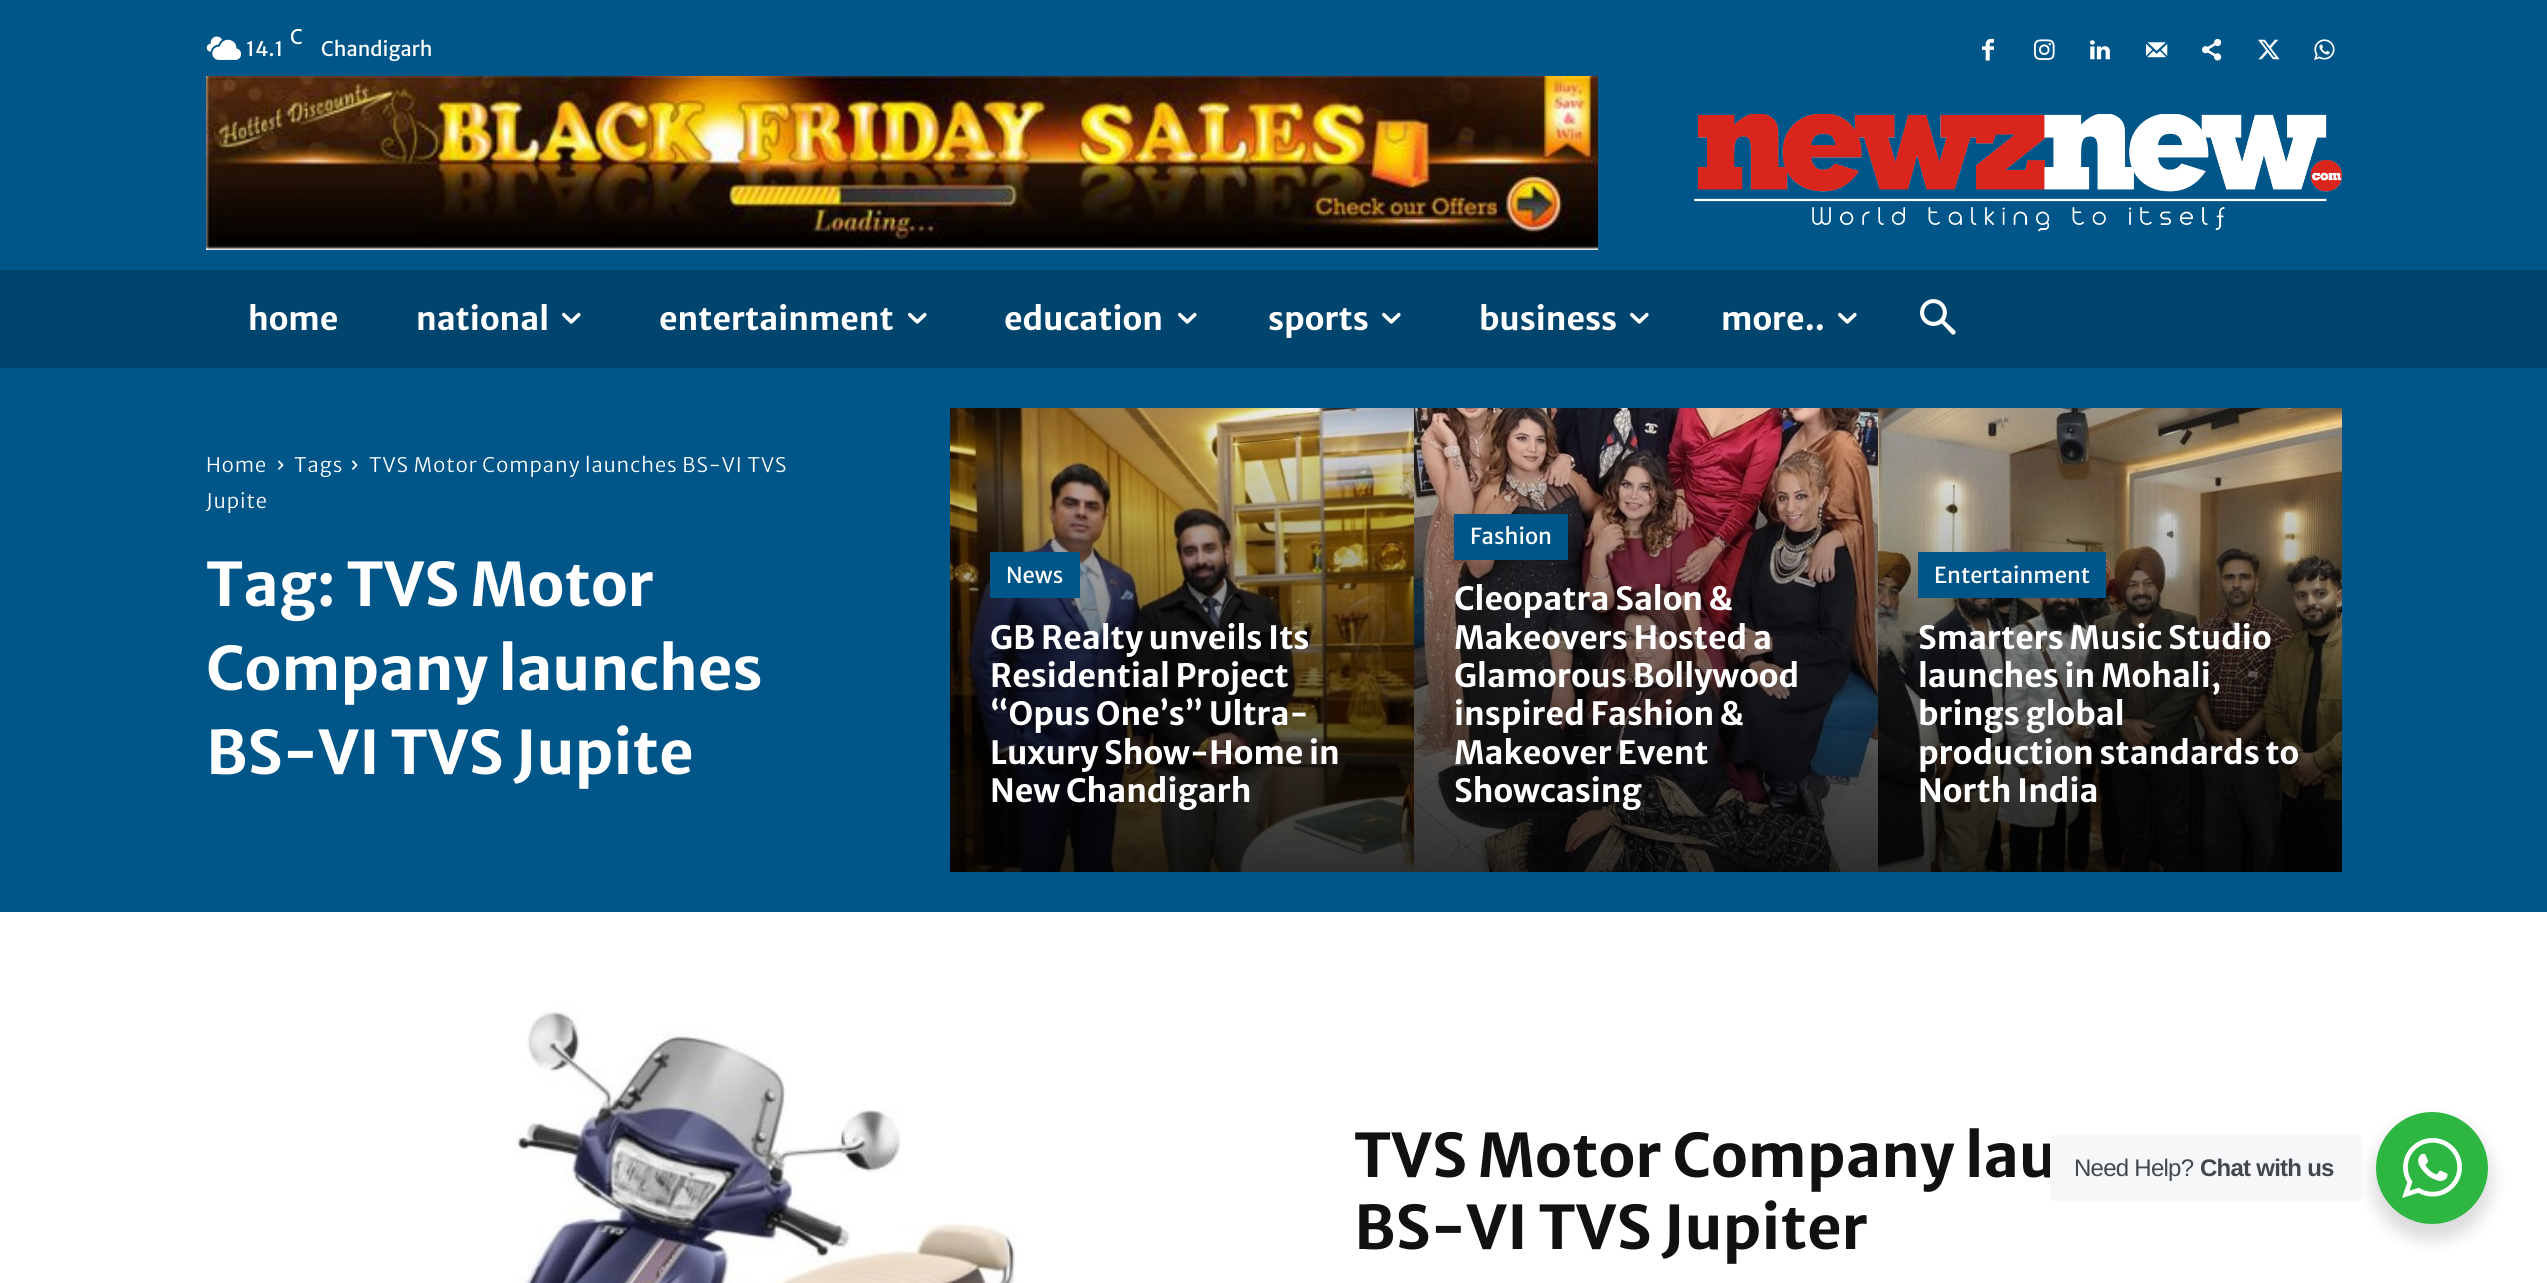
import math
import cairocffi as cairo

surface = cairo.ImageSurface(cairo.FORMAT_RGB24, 2547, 1283)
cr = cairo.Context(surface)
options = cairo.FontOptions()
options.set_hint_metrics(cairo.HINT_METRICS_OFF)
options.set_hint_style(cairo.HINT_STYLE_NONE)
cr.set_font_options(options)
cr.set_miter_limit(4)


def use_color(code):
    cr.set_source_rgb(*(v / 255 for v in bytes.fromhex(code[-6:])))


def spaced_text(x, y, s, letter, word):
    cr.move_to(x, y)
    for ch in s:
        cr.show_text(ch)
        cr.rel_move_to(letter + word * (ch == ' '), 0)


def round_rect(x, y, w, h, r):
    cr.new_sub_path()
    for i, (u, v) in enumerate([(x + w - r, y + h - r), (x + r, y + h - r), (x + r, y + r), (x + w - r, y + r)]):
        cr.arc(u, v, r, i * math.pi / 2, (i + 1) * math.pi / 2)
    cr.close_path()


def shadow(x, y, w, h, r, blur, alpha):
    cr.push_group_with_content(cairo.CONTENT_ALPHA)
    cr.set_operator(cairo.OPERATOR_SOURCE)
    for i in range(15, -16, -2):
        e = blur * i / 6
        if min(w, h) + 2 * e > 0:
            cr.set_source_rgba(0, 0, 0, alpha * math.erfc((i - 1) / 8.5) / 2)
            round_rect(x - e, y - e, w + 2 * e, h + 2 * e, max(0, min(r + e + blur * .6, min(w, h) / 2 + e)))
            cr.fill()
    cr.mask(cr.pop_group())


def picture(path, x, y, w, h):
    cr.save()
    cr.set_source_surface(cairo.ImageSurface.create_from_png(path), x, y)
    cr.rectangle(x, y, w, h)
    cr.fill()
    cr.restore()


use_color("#ffffff")
cr.paint()
use_color("#005689")
cr.rectangle(0, 0, 2547, 270)
cr.fill()
picture("img1.png", 206, 36, 36, 24)
cr.select_font_face("Merriweather Sans")
cr.set_font_size(20)
use_color("#ffffff")
cr.move_to(290, 44)
cr.show_text("C")
cr.move_to(246, 56)
cr.show_text("14.1")
cr.move_to(321, 56)
cr.show_text("Chandigarh")
picture("img2.png", 1982, 38, 12, 23)
picture("img3.png", 2034, 39, 21, 21)
picture("img4.png", 2090, 40, 20, 20)
picture("img5.png", 2146, 42, 22, 16)
picture("img6.png", 2202, 38, 20, 23)
picture("img7.png", 2258, 39, 22, 21)
picture("img8.png", 2314, 39, 21, 21)
picture("img9.png", 206, 76, 1392, 174)
picture("img10.png", 1694, 114, 648, 118)
use_color("#00456e")
cr.rectangle(0, 270, 2547, 98)
cr.fill()
cr.select_font_face("Merriweather Sans", cairo.FONT_SLANT_NORMAL, cairo.FONT_WEIGHT_BOLD)
cr.set_font_size(32)
use_color("#ffffff")
cr.move_to(248, 330)
cr.show_text("home")
cr.move_to(416, 330)
cr.show_text("national")
picture("img11.png", 562, 312, 19, 12)
cr.move_to(659, 330)
cr.show_text("entertainment")
picture("img11.png", 908, 312, 19, 12)
cr.move_to(1004, 330)
cr.show_text("education")
picture("img11.png", 1178, 312, 19, 12)
cr.move_to(1268, 330)
cr.show_text("sports")
picture("img11.png", 1382, 312, 19, 12)
cr.move_to(1479, 330)
cr.show_text("business")
picture("img11.png", 1630, 312, 19, 12)
cr.move_to(1721, 330)
cr.show_text("more..")
picture("img11.png", 1838, 312, 19, 12)
picture("img12.png", 1920, 299, 36, 36)
use_color("#005689")
cr.rectangle(0, 368, 2547, 544)
cr.fill()
cr.select_font_face("Merriweather Sans Light")
cr.set_font_size(20)
use_color("#ffffff")
spaced_text(206, 472, "Home", 1, 0)
picture("img13.png", 278, 460, 6, 10)
spaced_text(294, 472, "Tags", 1, 0)
picture("img13.png", 352, 460, 6, 10)
spaced_text(369, 472, "TVS Motor Company launches BS-VI TVS", 1, 0)
spaced_text(206, 508, "Jupite", 1, 0)
cr.select_font_face("Merriweather Sans", cairo.FONT_SLANT_NORMAL, cairo.FONT_WEIGHT_BOLD)
cr.set_font_size(60)
cr.move_to(206, 606)
cr.show_text("Tag: TVS Motor")
cr.move_to(206, 690)
cr.show_text("Company launches")
cr.move_to(206, 774)
cr.show_text("BS-VI TVS Jupite")
picture("img14.png", 950, 408, 464, 464)
use_color("#005689")
cr.rectangle(990, 552, 90, 46)
cr.fill()
cr.select_font_face("Merriweather Sans")
cr.set_font_size(22)
use_color("#ffffff")
cr.move_to(1006, 583)
cr.show_text("News")
cr.select_font_face("Merriweather Sans", cairo.FONT_SLANT_NORMAL, cairo.FONT_WEIGHT_BOLD)
cr.set_font_size(32)
cr.move_to(990, 649)
cr.show_text("GB Realty unveils Its")
cr.move_to(990, 687)
cr.show_text("Residential Project")
cr.move_to(990, 725)
cr.show_text("“Opus One’s” Ultra-")
cr.move_to(990, 764)
cr.show_text("Luxury Show-Home in")
cr.move_to(990, 802)
cr.show_text("New Chandigarh")
picture("img15.png", 1414, 408, 464, 464)
use_color("#005689")
cr.rectangle(1454, 514, 114, 46)
cr.fill()
cr.select_font_face("Merriweather Sans")
cr.set_font_size(22)
use_color("#ffffff")
cr.move_to(1470, 544)
cr.show_text("Fashion")
cr.select_font_face("Merriweather Sans", cairo.FONT_SLANT_NORMAL, cairo.FONT_WEIGHT_BOLD)
cr.set_font_size(32)
cr.move_to(1454, 610)
cr.show_text("Cleopatra Salon &")
cr.move_to(1454, 649)
cr.show_text("Makeovers Hosted a")
cr.move_to(1454, 687)
cr.show_text("Glamorous Bollywood")
cr.move_to(1454, 725)
cr.show_text("inspired Fashion &")
cr.move_to(1454, 764)
cr.show_text("Makeover Event")
cr.move_to(1454, 802)
cr.show_text("Showcasing")
picture("img16.png", 1878, 408, 464, 464)
use_color("#005689")
cr.rectangle(1918, 552, 188, 46)
cr.fill()
cr.select_font_face("Merriweather Sans")
cr.set_font_size(22)
use_color("#ffffff")
cr.move_to(1934, 583)
cr.show_text("Entertainment")
cr.select_font_face("Merriweather Sans", cairo.FONT_SLANT_NORMAL, cairo.FONT_WEIGHT_BOLD)
cr.set_font_size(32)
cr.move_to(1918, 649)
cr.show_text("Smarters Music Studio")
cr.move_to(1918, 687)
cr.show_text("launches in Mohali,")
cr.move_to(1918, 725)
cr.show_text("brings global")
cr.move_to(1918, 764)
cr.show_text("production standards to")
cr.move_to(1918, 802)
cr.show_text("North India")
picture("img17.png", 514, 1007, 503, 276)
cr.set_font_size(60)
use_color("#111111")
cr.move_to(1354, 1177)
cr.show_text("TVS Motor Company lau")
cr.move_to(1354, 1249)
cr.show_text("BS-VI TVS Jupiter")
use_color("#000000")
shadow(2372, 1120, 120, 120, 60, 8, 0.14)
use_color("#f5f7f9")
round_rect(2050, 1134, 312, 68, 8)
cr.fill()
cr.select_font_face("Liberation Sans")
cr.set_font_size(24)
use_color("#43474e")
spaced_text(2074, 1176, "Need Help?", -0.75, 0)
cr.select_font_face("Liberation Sans", cairo.FONT_SLANT_NORMAL, cairo.FONT_WEIGHT_BOLD)
spaced_text(2200, 1176, "Chat with us", -0.75, 0)
use_color("#2db742")
cr.new_path()
cr.arc(2432, 1168, 56, 0, 2 * math.pi)
cr.fill()
picture("img18.png", 2402, 1138, 60, 60)
surface.write_to_png("result.png")
